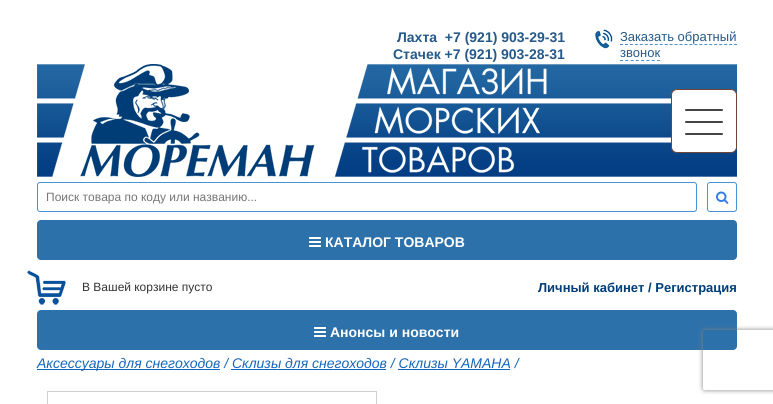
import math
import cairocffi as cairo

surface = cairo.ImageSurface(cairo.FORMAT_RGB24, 773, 404)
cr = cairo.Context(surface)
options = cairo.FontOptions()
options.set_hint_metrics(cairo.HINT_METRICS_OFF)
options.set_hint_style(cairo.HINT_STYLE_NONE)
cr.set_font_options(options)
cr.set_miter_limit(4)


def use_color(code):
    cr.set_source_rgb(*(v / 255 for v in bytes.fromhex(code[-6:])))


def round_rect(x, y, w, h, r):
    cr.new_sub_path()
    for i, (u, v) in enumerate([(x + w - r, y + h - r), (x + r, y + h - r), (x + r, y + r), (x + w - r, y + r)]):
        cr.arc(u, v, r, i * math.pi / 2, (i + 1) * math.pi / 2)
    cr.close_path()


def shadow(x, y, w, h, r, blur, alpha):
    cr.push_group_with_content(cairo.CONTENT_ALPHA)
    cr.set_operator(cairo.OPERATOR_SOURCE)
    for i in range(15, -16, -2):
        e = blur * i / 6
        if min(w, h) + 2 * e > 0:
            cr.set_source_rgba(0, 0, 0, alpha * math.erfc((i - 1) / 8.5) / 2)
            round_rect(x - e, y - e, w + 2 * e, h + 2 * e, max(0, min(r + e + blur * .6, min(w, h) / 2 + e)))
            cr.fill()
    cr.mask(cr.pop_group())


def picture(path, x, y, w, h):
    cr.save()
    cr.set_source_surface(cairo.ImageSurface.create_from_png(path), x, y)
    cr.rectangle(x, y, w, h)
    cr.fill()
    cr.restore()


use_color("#ffffff")
cr.paint()
cr.select_font_face("Liberation Sans", cairo.FONT_SLANT_NORMAL, cairo.FONT_WEIGHT_BOLD)
cr.set_font_size(14)
use_color("#255989")
cr.move_to(397, 42)
cr.show_text("Лахта  +7 (921) 903-29-31")
cr.move_to(393, 59)
cr.show_text("Стачек +7 (921) 903-28-31")
picture("img1.png", 595, 29, 18, 20)
cr.select_font_face("Liberation Sans")
cr.set_font_size(13)
cr.move_to(620, 41)
cr.show_text("Заказать обратный")
cr.new_path()
cr.move_to(620, 44.5)
cr.line_to(737, 44.5)
use_color("#4893d2")
cr.set_line_width(1)
cr.set_dash([3, 1.96])
cr.stroke()
use_color("#255989")
cr.move_to(620, 57)
cr.show_text("звонок")
cr.new_path()
cr.move_to(620, 60.5)
cr.line_to(660, 60.5)
use_color("#4893d2")
cr.set_dash([3, 2.29])
cr.stroke()
picture("img2.png", 37, 64, 700, 113)
picture("img3.png", 80, 64, 235, 113)
use_color("#ffffff")
round_rect(671.5, 89.5, 65, 63, 5.5)
cr.fill_preserve()
use_color("#704536")
cr.set_dash([])
cr.stroke()
cr.new_path()
cr.move_to(686, 122)
cr.line_to(722, 122)
cr.move_to(686, 110)
cr.line_to(722, 110)
cr.move_to(686, 134)
cr.line_to(722, 134)
use_color("#444444")
cr.set_line_width(2)
cr.set_line_cap(cairo.LINE_CAP_ROUND)
cr.set_line_join(cairo.LINE_JOIN_ROUND)
cr.stroke()
round_rect(37.5, 182.5, 659, 29, 2.5)
use_color("#4893d2")
cr.set_line_width(1)
cr.set_line_cap(cairo.LINE_CAP_BUTT)
cr.set_line_join(cairo.LINE_JOIN_MITER)
cr.stroke()
cr.set_font_size(12)
use_color("#757575")
cr.move_to(46, 201)
cr.show_text("Поиск товара по коду или названию...")
round_rect(707.5, 182.5, 29, 29, 2.5)
use_color("#4893d2")
cr.stroke()
picture("img4.png", 716, 191, 13, 13)
use_color("#2d71aa")
round_rect(37, 220, 700, 40, 4)
cr.fill()
picture("img5.png", 309, 237, 12, 10)
cr.select_font_face("Liberation Sans", cairo.FONT_SLANT_NORMAL, cairo.FONT_WEIGHT_BOLD)
cr.set_font_size(14)
use_color("#ffffff")
cr.move_to(325, 247)
cr.show_text("КАТАЛОГ ТОВАРОВ")
picture("img6.png", 27, 270, 39, 35)
cr.select_font_face("Liberation Sans")
cr.set_font_size(12)
use_color("#333333")
cr.move_to(82, 291)
cr.show_text("В Вашей корзине пусто")
cr.select_font_face("Liberation Sans", cairo.FONT_SLANT_NORMAL, cairo.FONT_WEIGHT_BOLD)
cr.set_font_size(13)
use_color("#003d77")
cr.move_to(538, 292)
cr.show_text("Личный кабинет / Регистрация")
use_color("#2d71aa")
round_rect(37, 310, 700, 40, 4)
cr.fill()
picture("img5.png", 314, 327, 12, 10)
cr.set_font_size(14)
use_color("#ffffff")
cr.move_to(330, 337)
cr.show_text("Анонсы и новости")
use_color("#1466ba")
cr.rectangle(37, 369, 183, 1)
cr.fill()
cr.select_font_face("Liberation Sans", cairo.FONT_SLANT_ITALIC)
cr.move_to(37, 368)
cr.show_text("Аксессуары для снегоходов / Склизы для снегоходов / Склизы YAMAHA /")
cr.rectangle(231, 369, 155, 1)
cr.fill()
cr.rectangle(398, 369, 112, 1)
cr.fill()
cr.rectangle(47.5, 391.5, 329, 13)
use_color("#cfcfcf")
cr.stroke()
cr.save()
cr.set_fill_rule(cairo.FILL_RULE_EVEN_ODD)
cr.new_path()
cr.move_to(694, 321)
cr.line_to(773, 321)
cr.line_to(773, 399)
cr.line_to(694, 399)
cr.close_path()
cr.move_to(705, 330)
cr.line_to(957, 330)
cr.curve_to(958, 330, 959, 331, 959, 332)
cr.line_to(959, 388)
cr.curve_to(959, 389, 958, 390, 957, 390)
cr.line_to(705, 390)
cr.curve_to(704, 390, 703, 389, 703, 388)
cr.line_to(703, 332)
cr.curve_to(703, 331, 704, 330, 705, 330)
cr.close_path()
cr.clip()
use_color("#808080")
shadow(703, 330, 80, 60, 2, 2.5, 1)
cr.restore()
surface.write_to_png("result.png")
